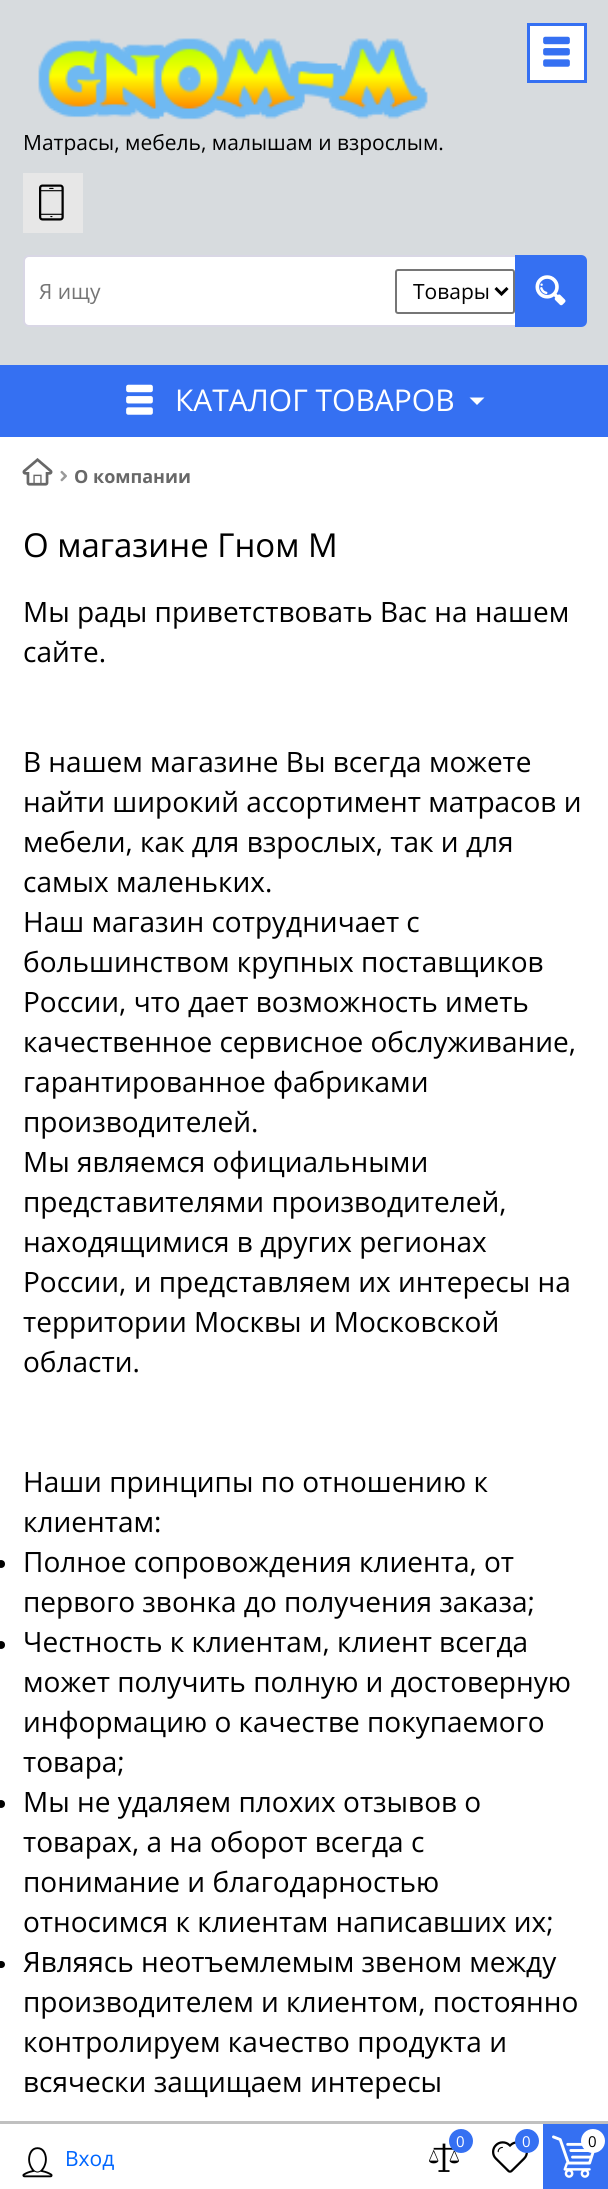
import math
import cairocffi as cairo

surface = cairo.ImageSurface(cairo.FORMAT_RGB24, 608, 2189)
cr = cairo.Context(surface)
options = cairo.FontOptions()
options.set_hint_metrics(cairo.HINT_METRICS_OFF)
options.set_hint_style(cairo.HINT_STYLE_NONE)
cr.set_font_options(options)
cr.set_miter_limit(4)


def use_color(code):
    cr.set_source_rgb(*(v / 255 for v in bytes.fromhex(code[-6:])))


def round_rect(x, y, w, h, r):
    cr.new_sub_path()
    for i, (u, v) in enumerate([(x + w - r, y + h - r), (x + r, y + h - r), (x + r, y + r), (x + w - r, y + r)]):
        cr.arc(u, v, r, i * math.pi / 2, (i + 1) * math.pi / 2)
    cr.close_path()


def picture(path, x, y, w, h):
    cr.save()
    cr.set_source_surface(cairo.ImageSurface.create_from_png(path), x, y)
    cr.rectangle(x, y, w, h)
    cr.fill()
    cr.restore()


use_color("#ffffff")
cr.paint()
use_color("#d7dbde")
cr.rectangle(0, 0, 608, 365)
cr.fill()
use_color("#ffffff")
cr.rectangle(528.5, 24.5, 57, 57)
cr.fill_preserve()
use_color("#3570f2")
cr.set_line_width(3)
cr.stroke()
picture("img1.png", 543, 36, 27, 31)
picture("img2.png", 38, 38, 390, 82)
cr.select_font_face("Open Sans")
cr.set_font_size(21)
use_color("#000000")
cr.move_to(23, 150)
cr.show_text("Матрасы, мебель, малышам и взрослым.")
use_color("#e7e7e7")
cr.rectangle(23, 173, 60, 60)
cr.fill()
picture("img3.png", 39, 184, 25, 37)
use_color("#ffffff")
round_rect(24, 256, 562, 70, 5)
cr.fill_preserve()
use_color("#d9d7e5")
cr.set_line_width(2)
cr.stroke()
use_color("#757575")
cr.move_to(39, 299)
cr.show_text("Я ищу")
round_rect(396, 270, 118, 43, 2)
use_color("#767676")
cr.stroke()
cr.new_path()
cr.move_to(495.5, 288)
cr.line_to(501.5, 294)
cr.line_to(507.5, 288)
use_color("#000000")
cr.set_line_width(3)
cr.stroke()
cr.move_to(413, 299)
cr.show_text("Товары")
use_color("#3570f2")
cr.new_path()
cr.move_to(515, 255)
cr.line_to(581, 255)
cr.curve_to(584.5, 255, 587, 257.5, 587, 261)
cr.line_to(587, 321)
cr.curve_to(587, 324.5, 584.5, 327, 581, 327)
cr.line_to(515, 327)
cr.close_path()
cr.fill()
picture("img4.png", 535, 275, 31, 31)
cr.rectangle(0, 365, 608, 72)
cr.fill()
picture("img5.png", 126, 384, 27, 31)
cr.set_font_size(30)
use_color("#ffffff")
cr.move_to(175, 411)
cr.show_text("КАТАЛОГ ТОВАРОВ")
cr.new_path()
cr.move_to(469.5, 397.5)
cr.line_to(484.5, 397.5)
cr.line_to(477, 405)
cr.close_path()
cr.fill()
picture("img6.png", 22, 458, 31, 28)
picture("img7.png", 60, 470, 7, 12)
cr.select_font_face("Open Sans", cairo.FONT_SLANT_NORMAL, cairo.FONT_WEIGHT_BOLD)
cr.set_font_size(18)
use_color("#686868")
cr.move_to(74, 483)
cr.show_text("О компании")
cr.select_font_face("Open Sans")
cr.set_font_size(33)
use_color("#000000")
cr.move_to(23, 557)
cr.show_text("О магазине Гном М")
cr.set_font_size(28)
cr.move_to(23, 622)
cr.show_text("Мы рады приветствовать Вас на нашем")
cr.move_to(23, 662)
cr.show_text("сайте.")
cr.move_to(23, 772)
cr.show_text("В нашем магазине Вы всегда можете")
cr.move_to(23, 812)
cr.show_text("найти широкий ассортимент матрасов и")
cr.move_to(23, 852)
cr.show_text("мебели, как для взрослых, так и для")
cr.move_to(23, 892)
cr.show_text("самых маленьких.")
cr.move_to(23, 932)
cr.show_text("Наш магазин сотрудничает с")
cr.move_to(23, 972)
cr.show_text("большинством крупных поставщиков")
cr.move_to(23, 1012)
cr.show_text("России, что дает возможность иметь")
cr.move_to(23, 1052)
cr.show_text("качественное сервисное обслуживание,")
cr.move_to(23, 1092)
cr.show_text("гарантированное фабриками")
cr.move_to(23, 1132)
cr.show_text("производителей.")
cr.move_to(23, 1172)
cr.show_text("Мы являемся официальными")
cr.move_to(23, 1212)
cr.show_text("представителями производителей,")
cr.move_to(23, 1252)
cr.show_text("находящимися в других регионах")
cr.move_to(23, 1292)
cr.show_text("России, и представляем их интересы на")
cr.move_to(23, 1332)
cr.show_text("территории Москвы и Московской")
cr.move_to(23, 1372)
cr.show_text("области.")
cr.move_to(23, 1492)
cr.show_text("Наши принципы по отношению к")
cr.move_to(23, 1532)
cr.show_text("клиентам:")
cr.new_path()
cr.arc(1, 1564, 4, 0, 2 * math.pi)
cr.fill()
cr.move_to(23, 1572)
cr.show_text("Полное сопровождения клиента, от")
cr.move_to(23, 1612)
cr.show_text("первого звонка до получения заказа;")
cr.new_path()
cr.arc(1, 1645, 4, 0, 2 * math.pi)
cr.fill()
cr.move_to(23, 1652)
cr.show_text("Честность к клиентам, клиент всегда")
cr.move_to(23, 1692)
cr.show_text("может получить полную и достоверную")
cr.move_to(23, 1732)
cr.show_text("информацию о качестве покупаемого")
cr.move_to(23, 1772)
cr.show_text("товара;")
cr.new_path()
cr.arc(1, 1804, 4, 0, 2 * math.pi)
cr.fill()
cr.move_to(23, 1812)
cr.show_text("Мы не удаляем плохих отзывов о")
cr.move_to(23, 1852)
cr.show_text("товарах, а на оборот всегда с")
cr.move_to(23, 1892)
cr.show_text("понимание и благодарностью")
cr.move_to(23, 1932)
cr.show_text("относимся к клиентам написавших их;")
round_rect(-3, 1961, 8, 7, 3.5)
cr.fill()
cr.move_to(23, 1972)
cr.show_text("Являясь неотъемлемым звеном между")
cr.move_to(23, 2012)
cr.show_text("производителем и клиентом, постоянно")
cr.move_to(23, 2052)
cr.show_text("контролируем качество продукта и")
cr.move_to(23, 2092)
cr.show_text("всячески защищаем интересы")
use_color("#c0c0c0")
cr.rectangle(0, 2121, 608, 3)
cr.fill()
picture("img8.png", 429, 2143, 30, 29)
use_color("#3570f2")
cr.arc(461, 2141, 12, 0, 2 * math.pi)
cr.fill()
cr.set_font_size(15)
use_color("#ffffff")
cr.move_to(456, 2147)
cr.show_text("0")
picture("img9.png", 492, 2141, 36, 32)
use_color("#3570f2")
cr.arc(527, 2141, 12, 0, 2 * math.pi)
cr.fill()
use_color("#ffffff")
cr.move_to(522, 2147)
cr.show_text("0")
use_color("#3570f2")
cr.rectangle(543, 2124, 65, 65)
cr.fill()
picture("img10.png", 552, 2135, 43, 43)
use_color("#ffffff")
cr.arc(593, 2141, 12, 0, 2 * math.pi)
cr.fill()
use_color("#000000")
cr.move_to(588, 2147)
cr.show_text("0")
picture("img11.png", 22, 2147, 31, 31)
cr.set_font_size(21)
use_color("#0066ff")
cr.move_to(65, 2166)
cr.show_text("Вход")
surface.write_to_png("result.png")
